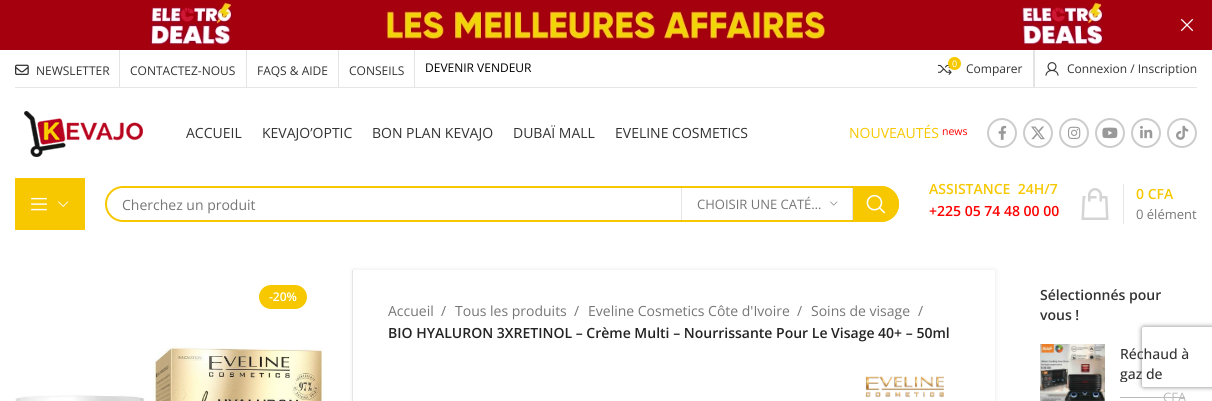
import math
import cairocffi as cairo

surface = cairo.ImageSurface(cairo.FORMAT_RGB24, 1212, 401)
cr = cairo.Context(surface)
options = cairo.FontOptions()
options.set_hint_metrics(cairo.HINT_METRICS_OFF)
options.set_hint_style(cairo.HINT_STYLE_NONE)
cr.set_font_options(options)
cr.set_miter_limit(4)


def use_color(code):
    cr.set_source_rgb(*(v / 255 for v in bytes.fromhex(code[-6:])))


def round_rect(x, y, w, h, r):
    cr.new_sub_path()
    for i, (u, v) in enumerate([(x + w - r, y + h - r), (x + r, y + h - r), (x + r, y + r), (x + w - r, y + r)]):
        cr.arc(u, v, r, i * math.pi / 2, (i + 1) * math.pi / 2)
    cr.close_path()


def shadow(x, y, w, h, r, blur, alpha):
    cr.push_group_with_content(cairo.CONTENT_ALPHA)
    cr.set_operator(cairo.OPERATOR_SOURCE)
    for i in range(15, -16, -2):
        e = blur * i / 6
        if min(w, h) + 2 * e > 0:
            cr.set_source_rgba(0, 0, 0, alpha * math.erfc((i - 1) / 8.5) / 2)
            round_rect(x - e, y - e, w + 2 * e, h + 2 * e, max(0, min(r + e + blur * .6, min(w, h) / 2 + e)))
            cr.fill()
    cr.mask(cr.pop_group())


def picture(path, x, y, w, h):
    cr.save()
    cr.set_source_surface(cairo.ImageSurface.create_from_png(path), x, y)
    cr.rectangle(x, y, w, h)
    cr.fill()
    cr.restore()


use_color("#ffffff")
cr.paint()
picture("img1.png", 0, 0, 1212, 50)
picture("img2.png", 1180, 18, 14, 14)
use_color("#e6e6e6")
cr.rectangle(15, 87, 1182, 1)
cr.fill()
picture("img3.png", 15, 64, 14, 11)
cr.select_font_face("Open Sans")
cr.set_font_size(12)
use_color("#333333")
cr.move_to(36, 75)
cr.show_text("NEWSLETTER")
use_color("#e4e4e4")
cr.rectangle(119, 50, 1, 37)
cr.fill()
use_color("#333333")
cr.move_to(130, 75)
cr.show_text("CONTACTEZ-NOUS")
use_color("#e4e4e4")
cr.rectangle(246, 50, 1, 37)
cr.fill()
use_color("#333333")
cr.move_to(257, 75)
cr.show_text("FAQS & AIDE")
use_color("#e4e4e4")
cr.rectangle(338, 50, 1, 37)
cr.fill()
use_color("#333333")
cr.move_to(349, 75)
cr.show_text("CONSEILS")
use_color("#e4e4e4")
cr.rectangle(414, 50, 1, 37)
cr.fill()
use_color("#000000")
cr.move_to(425, 72)
cr.show_text("DEVENIR VENDEUR")
picture("img4.png", 938, 63, 14, 12)
use_color("#f7c800")
cr.arc(954.5, 63.5, 6.5, 0, 2 * math.pi)
cr.fill()
cr.set_font_size(9)
use_color("#ffffff")
cr.move_to(952, 67)
cr.show_text("0")
cr.set_font_size(12)
use_color("#333333")
cr.move_to(966, 73)
cr.show_text("Comparer")
use_color("#e4e4e4")
cr.rectangle(1033, 50, 2, 37)
cr.fill()
picture("img5.png", 1045, 62, 14, 14)
use_color("#333333")
cr.move_to(1067, 73)
cr.show_text("Connexion / Inscription")
picture("img6.png", 24, 111, 119, 46)
cr.set_font_size(14)
cr.move_to(186, 138)
cr.show_text("ACCUEIL")
cr.move_to(262, 138)
cr.show_text("KEVAJO’OPTIC")
cr.move_to(372, 138)
cr.show_text("BON PLAN KEVAJO")
cr.move_to(513, 138)
cr.show_text("DUBAÏ MALL")
cr.move_to(615, 138)
cr.show_text("EVELINE COSMETICS")
use_color("#f7c800")
cr.move_to(849, 138)
cr.show_text("NOUVEAUTÉS")
cr.set_font_size(10.5)
use_color("#ff0000")
cr.move_to(942, 135)
cr.show_text("news")
cr.new_path()
cr.arc(1002, 133, 14, 0, 2 * math.pi)
use_color("#cccccc")
cr.stroke()
picture("img7.png", 998, 125, 9, 15)
cr.arc(1038, 133, 14, 0, 2 * math.pi)
cr.stroke()
picture("img8.png", 1031, 126, 14, 14)
cr.arc(1074, 133, 14, 0, 2 * math.pi)
cr.stroke()
picture("img9.png", 1068, 126, 13, 13)
cr.arc(1110, 133, 14, 0, 2 * math.pi)
cr.stroke()
picture("img10.png", 1102, 127, 16, 12)
cr.arc(1146, 133, 14, 0, 2 * math.pi)
cr.stroke()
picture("img11.png", 1140, 125, 13, 14)
cr.arc(1182, 133, 14, 0, 2 * math.pi)
cr.stroke()
picture("img12.png", 1176, 125, 13, 15)
use_color("#f7c800")
cr.rectangle(15, 178, 70, 52)
cr.fill()
picture("img13.png", 31, 197, 16, 14)
picture("img14.png", 58, 201, 11, 6)
round_rect(106, 187, 792, 34, 17)
cr.stroke()
cr.set_font_size(14)
use_color("#767676")
cr.move_to(122, 210)
cr.show_text("Cherchez un produit")
cr.set_source_rgba(0, 0, 0, 0.1)
cr.rectangle(852, 187, 1, 34)
cr.fill()
cr.rectangle(681, 187, 1, 34)
cr.fill()
cr.set_font_size(13)
use_color("#767676")
cr.move_to(697, 209)
cr.show_text("CHOISIR UNE CATÉ…")
picture("img15.png", 830, 201, 8, 5)
use_color("#f7c800")
cr.new_path()
cr.move_to(853, 186)
cr.line_to(881, 186)
cr.curve_to(891, 186, 899, 194, 899, 204)
cr.curve_to(899, 214, 891, 222, 881, 222)
cr.line_to(853, 222)
cr.close_path()
cr.fill()
picture("img16.png", 866, 194, 20, 20)
cr.select_font_face("Open Sans SemiBold")
cr.set_font_size(14)
cr.move_to(929, 194)
cr.show_text("ASSISTANCE  24H/7")
use_color("#ff0000")
cr.move_to(929, 216)
cr.show_text("+225 05 74 48 00 00")
picture("img17.png", 1081, 188, 28, 32)
use_color("#e6e6e6")
cr.rectangle(1123, 184, 1, 40)
cr.fill()
use_color("#f7c800")
cr.move_to(1136, 199)
cr.show_text("0 CFA")
cr.select_font_face("Open Sans")
cr.set_font_size(13)
use_color("#767676")
cr.move_to(1136, 219)
cr.show_text("0 élément")
use_color("#f7c800")
round_rect(259, 285, 48, 24, 12)
cr.fill()
cr.select_font_face("Open Sans SemiBold")
cr.set_font_size(12)
use_color("#ffffff")
cr.move_to(269, 301)
cr.show_text("-20%")
picture("img18.png", 15, 346, 307, 55)
use_color("#eeeeee")
cr.rectangle(352, 270, 1, 131)
cr.fill()
cr.save()
cr.set_fill_rule(cairo.FILL_RULE_EVEN_ODD)
cr.new_path()
cr.move_to(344, 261)
cr.line_to(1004, 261)
cr.line_to(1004, 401)
cr.line_to(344, 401)
cr.close_path()
cr.move_to(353, 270)
cr.line_to(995, 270)
cr.line_to(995, 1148)
cr.line_to(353, 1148)
cr.close_path()
cr.clip()
use_color("#000000")
shadow(353, 270, 642, 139, 0, 2.5, 0.1)
cr.restore()
cr.select_font_face("Open Sans")
cr.set_font_size(14)
use_color("#767676")
cr.move_to(388, 316)
cr.show_text("Accueil")
cr.move_to(441, 316)
cr.show_text("/")
cr.move_to(455, 316)
cr.show_text("Tous les produits")
cr.move_to(574, 316)
cr.show_text("/")
cr.move_to(588, 316)
cr.show_text("Eveline Cosmetics Côte d'Ivoire")
cr.move_to(797, 316)
cr.show_text("/")
cr.move_to(811, 316)
cr.show_text("Soins de visage")
cr.move_to(918, 316)
cr.show_text("/")
cr.select_font_face("Open Sans SemiBold")
use_color("#242424")
cr.move_to(388, 338)
cr.show_text("BIO HYALURON 3XRETINOL – Crème Multi – Nourrissante Pour Le Visage 40+ – 50ml")
picture("img19.png", 865, 376, 79, 22)
use_color("#333333")
cr.move_to(1040, 300)
cr.show_text("Sélectionnés pour")
cr.move_to(1040, 320)
cr.show_text("vous !")
picture("img20.png", 1040, 344, 65, 57)
cr.select_font_face("Open Sans Medium")
cr.move_to(1120, 359)
cr.show_text("Réchaud à")
cr.save()
cr.rectangle(1120, 344, 73, 38)
cr.clip()
cr.move_to(1120, 379)
cr.show_text("gaz de")
cr.restore()
cr.select_font_face("Open Sans")
cr.set_font_size(13)
use_color("#bbbbbb")
cr.move_to(1163, 402)
cr.show_text("CFA")
cr.rectangle(1120, 397, 43, 1)
cr.fill()
cr.rectangle(1163, 397, 22, 1)
cr.fill()
cr.save()
cr.set_fill_rule(cairo.FILL_RULE_EVEN_ODD)
cr.new_path()
cr.move_to(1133, 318)
cr.line_to(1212, 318)
cr.line_to(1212, 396)
cr.line_to(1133, 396)
cr.close_path()
cr.move_to(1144, 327)
cr.line_to(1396, 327)
cr.curve_to(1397, 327, 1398, 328, 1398, 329)
cr.line_to(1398, 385)
cr.curve_to(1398, 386, 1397, 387, 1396, 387)
cr.line_to(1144, 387)
cr.curve_to(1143, 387, 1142, 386, 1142, 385)
cr.line_to(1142, 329)
cr.curve_to(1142, 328, 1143, 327, 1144, 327)
cr.close_path()
cr.clip()
use_color("#808080")
shadow(1142, 327, 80, 60, 2, 2.5, 1)
cr.restore()
surface.write_to_png("result.png")
